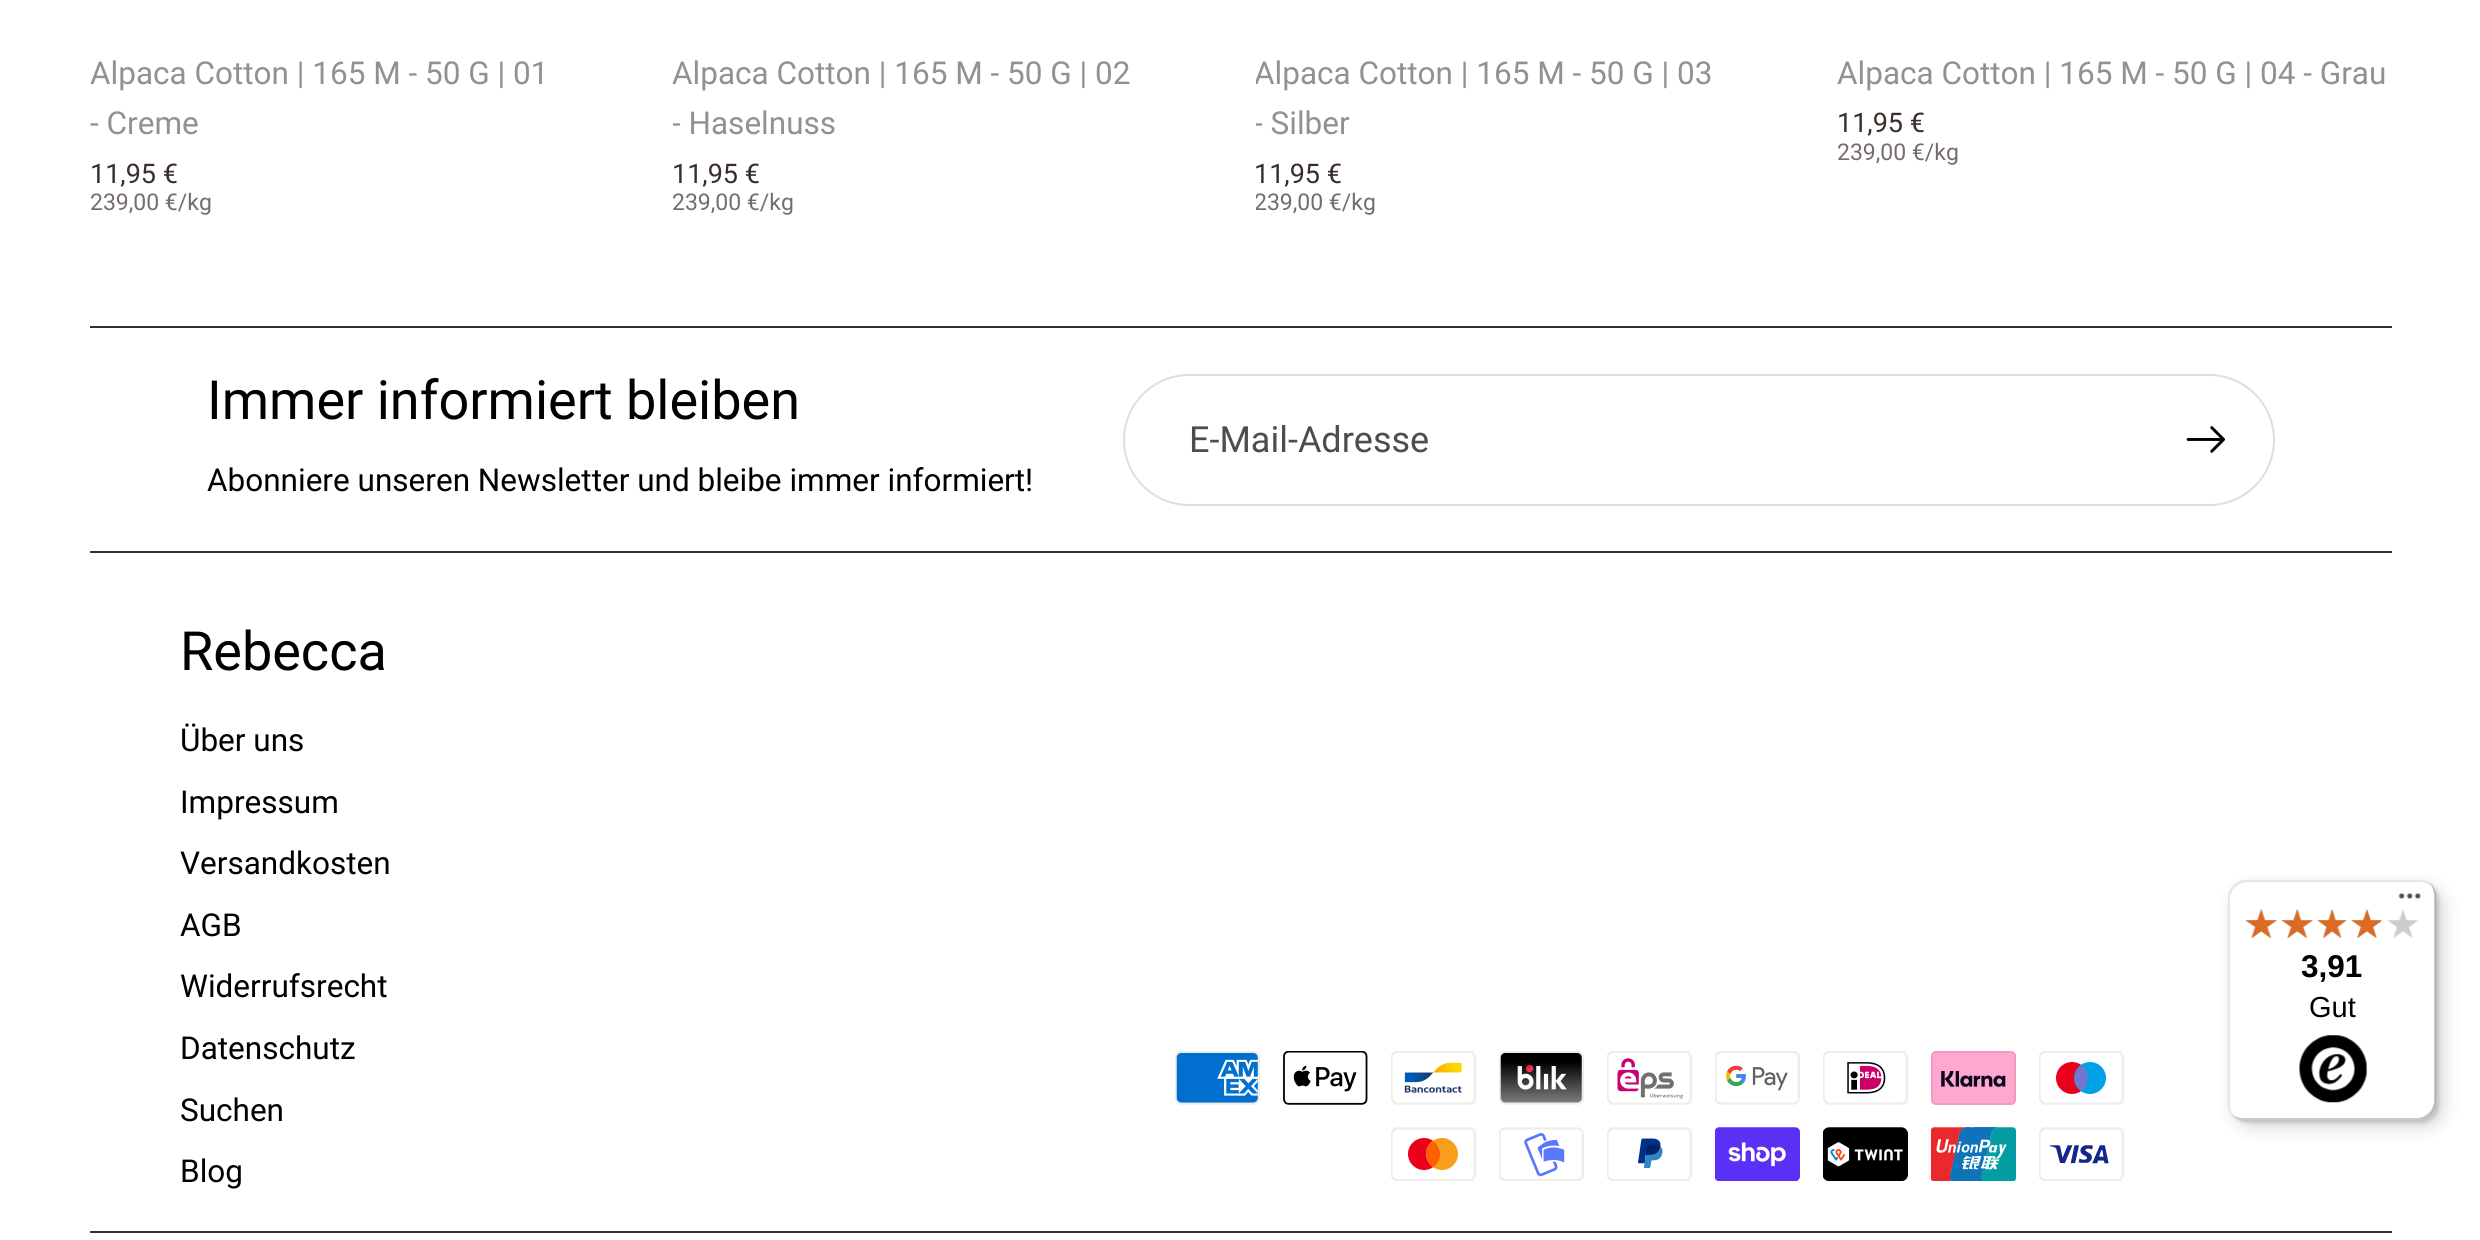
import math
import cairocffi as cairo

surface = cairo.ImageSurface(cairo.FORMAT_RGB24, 2480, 1240)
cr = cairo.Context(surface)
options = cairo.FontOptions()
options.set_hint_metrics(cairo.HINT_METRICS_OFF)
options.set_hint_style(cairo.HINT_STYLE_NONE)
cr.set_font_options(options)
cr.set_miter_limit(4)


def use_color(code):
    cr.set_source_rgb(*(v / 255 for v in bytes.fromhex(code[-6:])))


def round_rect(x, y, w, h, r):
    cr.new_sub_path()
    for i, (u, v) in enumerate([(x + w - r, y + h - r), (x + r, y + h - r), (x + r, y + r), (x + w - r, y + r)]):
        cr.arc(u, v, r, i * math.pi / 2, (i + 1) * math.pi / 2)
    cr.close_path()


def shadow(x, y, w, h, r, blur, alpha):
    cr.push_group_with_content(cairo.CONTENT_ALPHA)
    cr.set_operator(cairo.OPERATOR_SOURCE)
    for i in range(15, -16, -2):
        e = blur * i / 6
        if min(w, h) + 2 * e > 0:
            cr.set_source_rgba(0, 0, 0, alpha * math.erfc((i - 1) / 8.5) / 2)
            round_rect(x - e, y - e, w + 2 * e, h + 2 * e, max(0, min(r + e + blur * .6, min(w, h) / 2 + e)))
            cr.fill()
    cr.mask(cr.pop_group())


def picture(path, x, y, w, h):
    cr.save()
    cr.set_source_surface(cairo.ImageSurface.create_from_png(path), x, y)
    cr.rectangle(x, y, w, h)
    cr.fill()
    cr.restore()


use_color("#ffffff")
cr.paint()
cr.select_font_face("Roboto")
cr.set_font_size(31.5)
use_color("#94908e")
cr.move_to(90, 84)
cr.show_text("Alpaca Cotton | 165 M - 50 G | 01")
cr.move_to(90, 134)
cr.show_text("- Creme")
cr.set_font_size(27)
use_color("#3a2e2a")
cr.move_to(90, 183)
cr.show_text("11,95 €")
cr.set_font_size(23)
use_color("#756d6a")
cr.move_to(90, 210)
cr.show_text("239,00 €/kg")
cr.set_font_size(31.5)
use_color("#94908e")
cr.move_to(672, 84)
cr.show_text("Alpaca Cotton | 165 M - 50 G | 02")
cr.save()
cr.rectangle(673, 0, 556, 218)
cr.clip()
cr.move_to(672, 134)
cr.show_text("- Haselnuss")
cr.restore()
cr.set_font_size(27)
use_color("#3a2e2a")
cr.move_to(672, 183)
cr.show_text("11,95 €")
cr.set_font_size(23)
use_color("#756d6a")
cr.move_to(672, 210)
cr.show_text("239,00 €/kg")
cr.save()
cr.rectangle(1256, 0, 553, 218)
cr.clip()
cr.set_font_size(31.5)
use_color("#94908e")
cr.move_to(1254, 84)
cr.show_text("Alpaca Cotton | 165 M - 50 G | 03")
cr.move_to(1254, 134)
cr.show_text("- Silber")
cr.restore()
cr.set_font_size(27)
use_color("#3a2e2a")
cr.move_to(1254, 183)
cr.show_text("11,95 €")
cr.save()
cr.rectangle(1256, 0, 553, 218)
cr.clip()
cr.set_font_size(23)
use_color("#756d6a")
cr.move_to(1254, 210)
cr.show_text("239,00 €/kg")
cr.restore()
cr.set_font_size(31.5)
use_color("#94908e")
cr.move_to(1837, 84)
cr.show_text("Alpaca Cotton | 165 M - 50 G | 04 - Grau")
cr.set_font_size(27)
use_color("#3a2e2a")
cr.move_to(1837, 132)
cr.show_text("11,95 €")
cr.set_font_size(23)
use_color("#756d6a")
cr.move_to(1837, 160)
cr.show_text("239,00 €/kg")
use_color("#3a2e2a")
cr.rectangle(90, 326, 2302, 2)
cr.fill()
cr.set_font_size(54)
use_color("#000000")
cr.move_to(207, 419)
cr.show_text("Immer informiert bleiben")
cr.set_font_size(31.5)
cr.move_to(207, 491)
cr.show_text("Abonniere unseren Newsletter und bleibe immer informiert!")
round_rect(1124, 375, 1150, 130, 65)
use_color("#dedede")
cr.stroke()
cr.set_font_size(36)
use_color("#4d4d4d")
cr.move_to(1189, 452)
cr.show_text("E-Mail-Adresse")
picture("img1.png", 2186, 426, 39, 27)
use_color("#3a2e2a")
cr.rectangle(90, 551, 2302, 2)
cr.fill()
cr.set_font_size(54)
use_color("#000000")
cr.move_to(180, 670)
cr.show_text("Rebecca")
cr.set_font_size(31.5)
cr.move_to(180, 751)
cr.show_text("Über uns")
cr.move_to(180, 813)
cr.show_text("Impressum")
cr.move_to(180, 874)
cr.show_text("Versandkosten")
cr.move_to(180, 936)
cr.show_text("AGB")
cr.move_to(180, 997)
cr.show_text("Widerrufsrecht")
cr.move_to(180, 1059)
cr.show_text("Datenschutz")
cr.move_to(180, 1121)
cr.show_text("Suchen")
cr.move_to(180, 1182)
cr.show_text("Blog")
picture("img2.png", 1175, 1051, 85, 54)
picture("img3.png", 1283, 1051, 85, 54)
picture("img4.png", 1391, 1051, 85, 54)
picture("img5.png", 1499, 1051, 85, 54)
picture("img6.png", 1607, 1051, 85, 54)
picture("img7.png", 1715, 1051, 85, 54)
picture("img8.png", 1823, 1051, 85, 54)
picture("img9.png", 1931, 1051, 85, 54)
picture("img10.png", 2039, 1051, 85, 54)
picture("img11.png", 1391, 1127, 85, 54)
picture("img12.png", 1499, 1127, 85, 54)
picture("img13.png", 1607, 1127, 85, 54)
picture("img14.png", 1715, 1127, 85, 54)
picture("img15.png", 1823, 1127, 85, 54)
picture("img16.png", 1931, 1127, 85, 54)
picture("img17.png", 2039, 1127, 85, 54)
use_color("#000000")
shadow(2234, 887, 210, 240, 18, 9, 0.15)
shadow(2230, 882, 209, 241, 18, 2, 0.15)
use_color("#ffffff")
round_rect(2228, 880, 209, 241, 18)
cr.fill()
cr.set_source_rgba(0, 0, 0, 0.1)
cr.new_path()
cr.move_to(2248, 882)
cr.line_to(2421, 882)
cr.curve_to(2425, 882, 2429, 884, 2433, 886)
cr.curve_to(2429, 882, 2424, 880, 2419, 880)
cr.line_to(2246, 880)
cr.curve_to(2236, 880, 2228, 888, 2228, 898)
cr.line_to(2228, 1103)
cr.curve_to(2228, 1108, 2230, 1113, 2234, 1117)
cr.curve_to(2232, 1113, 2230, 1109, 2230, 1105)
cr.line_to(2230, 900)
cr.curve_to(2230, 890, 2238, 882, 2248, 882)
cr.close_path()
cr.fill()
cr.set_source_rgba(0, 0, 0, 0.2)
cr.new_path()
cr.move_to(2232, 1114)
cr.curve_to(2235, 1118, 2240, 1121, 2246, 1121)
cr.line_to(2419, 1121)
cr.curve_to(2429, 1121, 2437, 1113, 2437, 1103)
cr.line_to(2437, 898)
cr.curve_to(2437, 891, 2433, 885, 2428, 882)
cr.curve_to(2432, 885, 2434, 890, 2434, 896)
cr.line_to(2434, 1100)
cr.curve_to(2434, 1110, 2426, 1118, 2416, 1118)
cr.line_to(2243, 1118)
cr.curve_to(2239, 1118, 2235, 1117, 2232, 1114)
cr.close_path()
cr.fill()
cr.set_source_rgba(0.196, 0.196, 0.196, 0.2)
cr.new_path()
cr.move_to(2232, 1115)
cr.curve_to(2236, 1119, 2241, 1121, 2246, 1121)
cr.line_to(2419, 1121)
cr.curve_to(2429, 1121, 2437, 1113, 2437, 1103)
cr.line_to(2437, 898)
cr.curve_to(2437, 893, 2435, 888, 2431, 884)
cr.curve_to(2433, 888, 2435, 892, 2435, 896)
cr.line_to(2435, 1101)
cr.curve_to(2435, 1111, 2427, 1119, 2417, 1119)
cr.line_to(2244, 1119)
cr.curve_to(2240, 1119, 2236, 1117, 2232, 1115)
cr.close_path()
cr.fill()
cr.set_source_rgba(1, 1, 1, 0.3)
cr.new_path()
cr.move_to(2232, 1115)
cr.curve_to(2236, 1119, 2241, 1121, 2246, 1121)
cr.line_to(2419, 1121)
cr.curve_to(2429, 1121, 2437, 1113, 2437, 1103)
cr.line_to(2437, 898)
cr.curve_to(2437, 893, 2435, 888, 2432, 885)
cr.curve_to(2434, 888, 2436, 892, 2436, 897)
cr.line_to(2436, 1101)
cr.curve_to(2436, 1111, 2428, 1119, 2418, 1119)
cr.line_to(2244, 1119)
cr.curve_to(2240, 1119, 2236, 1117, 2232, 1115)
cr.close_path()
cr.fill()
picture("img18.png", 2398, 893, 23, 7)
picture("img19.png", 2245, 909, 32, 29)
picture("img20.png", 2282, 909, 31, 29)
picture("img21.png", 2317, 909, 30, 29)
picture("img22.png", 2351, 909, 32, 29)
picture("img23.png", 2387, 909, 32, 29)
picture("img24.png", 2245, 909, 32, 29)
picture("img25.png", 2281, 909, 33, 29)
picture("img26.png", 2317, 909, 30, 29)
picture("img27.png", 2351, 909, 30, 29)
cr.select_font_face("Liberation Sans", cairo.FONT_SLANT_NORMAL, cairo.FONT_WEIGHT_BOLD)
use_color("#000000")
cr.move_to(2301, 977)
cr.show_text("3,91")
cr.select_font_face("Liberation Sans")
cr.set_font_size(29)
cr.move_to(2309, 1017)
cr.show_text("Gut")
picture("img28.png", 2299, 1035, 69, 68)
use_color("#3a2e2a")
cr.rectangle(90, 1231, 2302, 2)
cr.fill()
surface.write_to_png("result.png")
